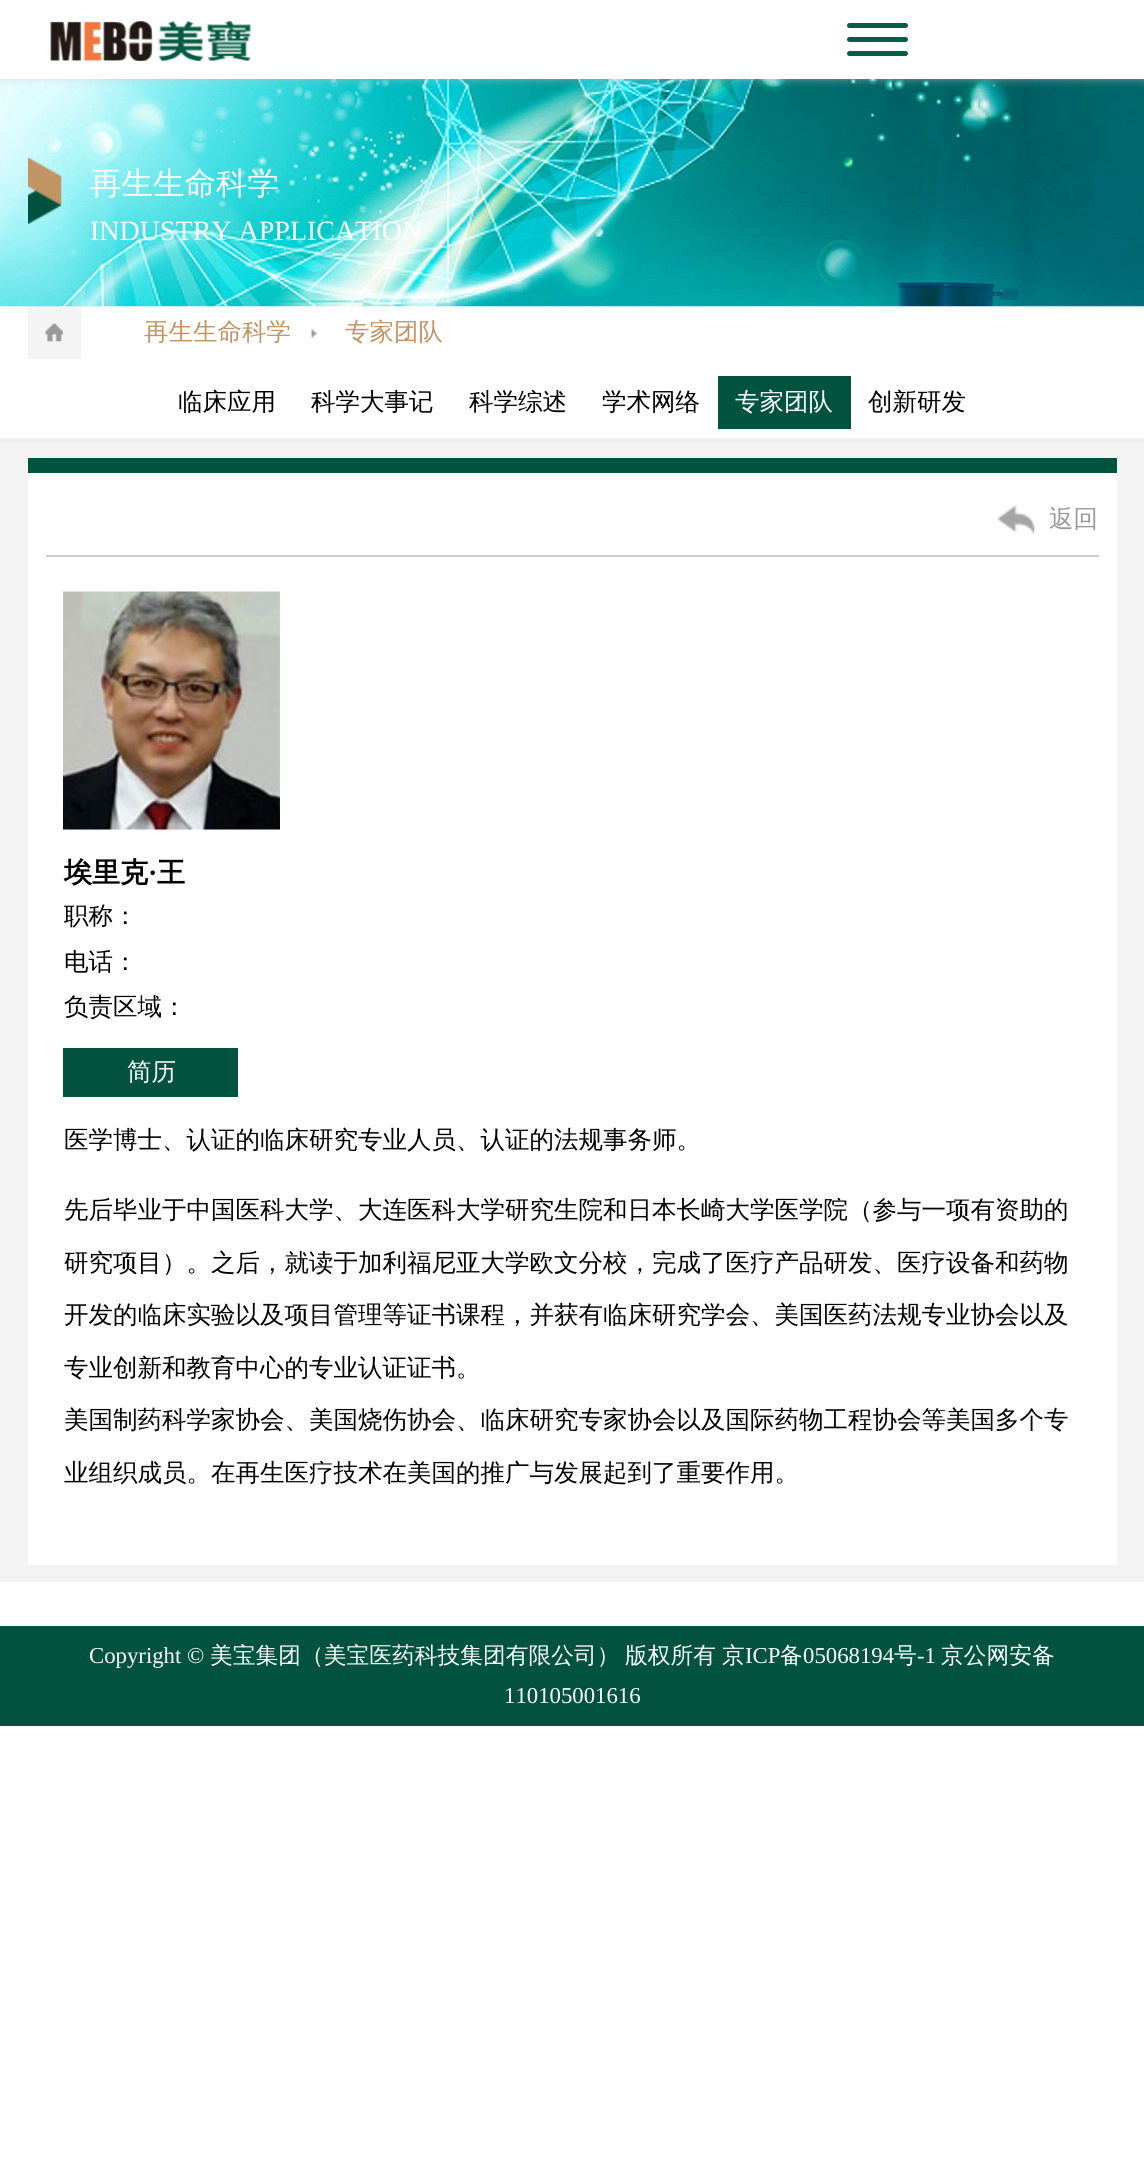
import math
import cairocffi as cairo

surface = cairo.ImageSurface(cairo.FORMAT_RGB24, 1144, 2172)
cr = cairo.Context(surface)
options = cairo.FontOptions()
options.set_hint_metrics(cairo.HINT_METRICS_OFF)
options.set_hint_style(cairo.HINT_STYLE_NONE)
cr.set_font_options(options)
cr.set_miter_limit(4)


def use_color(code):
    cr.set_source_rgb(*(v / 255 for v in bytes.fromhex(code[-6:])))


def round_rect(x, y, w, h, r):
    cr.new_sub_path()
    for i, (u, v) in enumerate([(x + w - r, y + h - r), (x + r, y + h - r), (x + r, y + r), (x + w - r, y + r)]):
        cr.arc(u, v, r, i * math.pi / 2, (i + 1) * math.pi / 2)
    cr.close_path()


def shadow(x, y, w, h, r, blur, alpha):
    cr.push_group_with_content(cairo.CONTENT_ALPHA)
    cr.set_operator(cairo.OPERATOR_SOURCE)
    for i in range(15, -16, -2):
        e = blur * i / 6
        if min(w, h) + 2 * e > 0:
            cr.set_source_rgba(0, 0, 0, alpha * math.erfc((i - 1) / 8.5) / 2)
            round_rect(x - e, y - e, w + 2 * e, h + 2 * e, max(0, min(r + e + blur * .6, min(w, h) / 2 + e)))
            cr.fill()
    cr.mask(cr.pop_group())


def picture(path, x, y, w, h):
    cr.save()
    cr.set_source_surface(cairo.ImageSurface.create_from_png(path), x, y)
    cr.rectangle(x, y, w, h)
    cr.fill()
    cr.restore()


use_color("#ffffff")
cr.paint()
use_color("#f4f4f4")
cr.rectangle(28, 306, 53, 53)
cr.fill()
picture("img2.png", 0, 79, 1144, 228)
use_color("#cccccc")
shadow(0, 0, 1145, 79, 0, 4.5, 0.6)
use_color("#ffffff")
cr.rectangle(0, 0, 1144, 79)
cr.fill()
picture("img1.png", 50, 21, 201, 40)
use_color("#055c47")
round_rect(847, 23, 61, 5, 2.5)
cr.fill()
round_rect(847, 37, 61, 5, 2.5)
cr.fill()
round_rect(847, 51, 61, 5, 2.5)
cr.fill()
picture("img3.png", 28, 157, 34, 67)
cr.select_font_face("WenQuanYi Zen Hei Medium")
cr.set_font_size(31.5)
use_color("#ffffff")
cr.move_to(90, 194)
cr.show_text("再生生命科学")
cr.select_font_face("Liberation Serif")
cr.set_font_size(28)
cr.move_to(90, 240)
cr.show_text("INDUSTRY APPLICATION")
use_color("#f3f3f3")
cr.rectangle(0, 442, 1144, 1140)
cr.fill()
use_color("#efefef")
cr.rectangle(0, 438, 1144, 4)
cr.fill()
picture("img4.png", 45, 323, 18, 19)
picture("img5.png", 311, 328, 7, 11)
cr.select_font_face("WenQuanYi Zen Hei Medium")
cr.set_font_size(24.5)
use_color("#c09463")
cr.move_to(144, 340)
cr.show_text("再生生命科学")
cr.move_to(345, 340)
cr.show_text("专家团队")
use_color("#000000")
cr.move_to(178, 410)
cr.show_text("临床应用")
cr.move_to(311, 410)
cr.show_text("科学大事记")
cr.move_to(469, 410)
cr.show_text("科学综述")
cr.move_to(602, 410)
cr.show_text("学术网络")
use_color("#01533f")
cr.rectangle(718, 376, 133, 53)
cr.fill()
use_color("#ffffff")
cr.move_to(735, 410)
cr.show_text("专家团队")
use_color("#000000")
cr.move_to(868, 410)
cr.show_text("创新研发")
use_color("#ffffff")
cr.rectangle(28, 473, 1089, 1092)
cr.fill()
use_color("#01533f")
cr.rectangle(28, 458, 1089, 15)
cr.fill()
use_color("#cccccc")
cr.rectangle(46, 555, 1053, 2)
cr.fill()
picture("img6.png", 997, 505, 38, 29)
use_color("#999999")
cr.move_to(1049, 527)
cr.show_text("返回")
picture("img7.png", 63, 591, 217, 239)
cr.select_font_face("WenQuanYi Zen Hei", cairo.FONT_SLANT_NORMAL, cairo.FONT_WEIGHT_BOLD)
cr.set_font_size(28)
use_color("#000000")
cr.move_to(64, 882)
cr.show_text("埃里克")
cr.select_font_face("Liberation Serif", cairo.FONT_SLANT_NORMAL, cairo.FONT_WEIGHT_BOLD)
cr.move_to(148, 882)
cr.show_text("·")
cr.select_font_face("WenQuanYi Zen Hei", cairo.FONT_SLANT_NORMAL, cairo.FONT_WEIGHT_BOLD)
cr.move_to(157, 882)
cr.show_text("王")
cr.select_font_face("WenQuanYi Zen Hei Medium")
cr.set_font_size(24.5)
cr.move_to(64, 924)
cr.show_text("职称：")
cr.move_to(64, 970)
cr.show_text("电话：")
cr.move_to(64, 1015)
cr.show_text("负责区域：")
use_color("#01533f")
cr.rectangle(63, 1048, 175, 49)
cr.fill()
use_color("#ffffff")
cr.move_to(127, 1080)
cr.show_text("简历")
use_color("#000000")
cr.move_to(64, 1148)
cr.show_text("医学博士、认证的临床研究专业人员、认证的法规事务师。")
cr.move_to(64, 1218)
cr.show_text("先后毕业于中国医科大学、大连医科大学研究生院和日本长崎大学医学院（参与一项有资助的")
cr.move_to(64, 1271)
cr.show_text("研究项目）。之后，就读于加利福尼亚大学欧文分校，完成了医疗产品研发、医疗设备和药物")
cr.move_to(64, 1323)
cr.show_text("开发的临床实验以及项目管理等证书课程，并获有临床研究学会、美国医药法规专业协会以及")
cr.move_to(64, 1376)
cr.show_text("专业创新和教育中心的专业认证证书。")
cr.move_to(64, 1428)
cr.show_text("美国制药科学家协会、美国烧伤协会、临床研究专家协会以及国际药物工程协会等美国多个专")
cr.move_to(64, 1481)
cr.show_text("业组织成员。在再生医疗技术在美国的推广与发展起到了重要作用。")
use_color("#01533f")
cr.rectangle(0, 1626, 1144, 100)
cr.fill()
cr.select_font_face("Liberation Serif")
cr.set_font_size(22.75)
use_color("#ffffff")
cr.move_to(89, 1663)
cr.show_text("Copyright ©")
cr.select_font_face("WenQuanYi Zen Hei Medium")
cr.move_to(210, 1663)
cr.show_text("美宝集团（美宝医药科技集团有限公司）")
cr.move_to(625, 1663)
cr.show_text("版权所有")
cr.move_to(722, 1663)
cr.show_text("京")
cr.select_font_face("Liberation Serif")
cr.move_to(745, 1663)
cr.show_text("ICP")
cr.select_font_face("WenQuanYi Zen Hei Medium")
cr.move_to(780, 1663)
cr.show_text("备")
cr.select_font_face("Liberation Serif")
cr.move_to(803, 1663)
cr.show_text("05068194")
cr.select_font_face("WenQuanYi Zen Hei Medium")
cr.move_to(894, 1663)
cr.show_text("号")
cr.select_font_face("Liberation Serif")
cr.move_to(917, 1663)
cr.show_text("-1")
cr.select_font_face("WenQuanYi Zen Hei Medium")
cr.move_to(941, 1663)
cr.show_text("京公网安备")
cr.select_font_face("Liberation Serif")
cr.move_to(504, 1703)
cr.show_text("110105001616")
surface.write_to_png("result.png")
